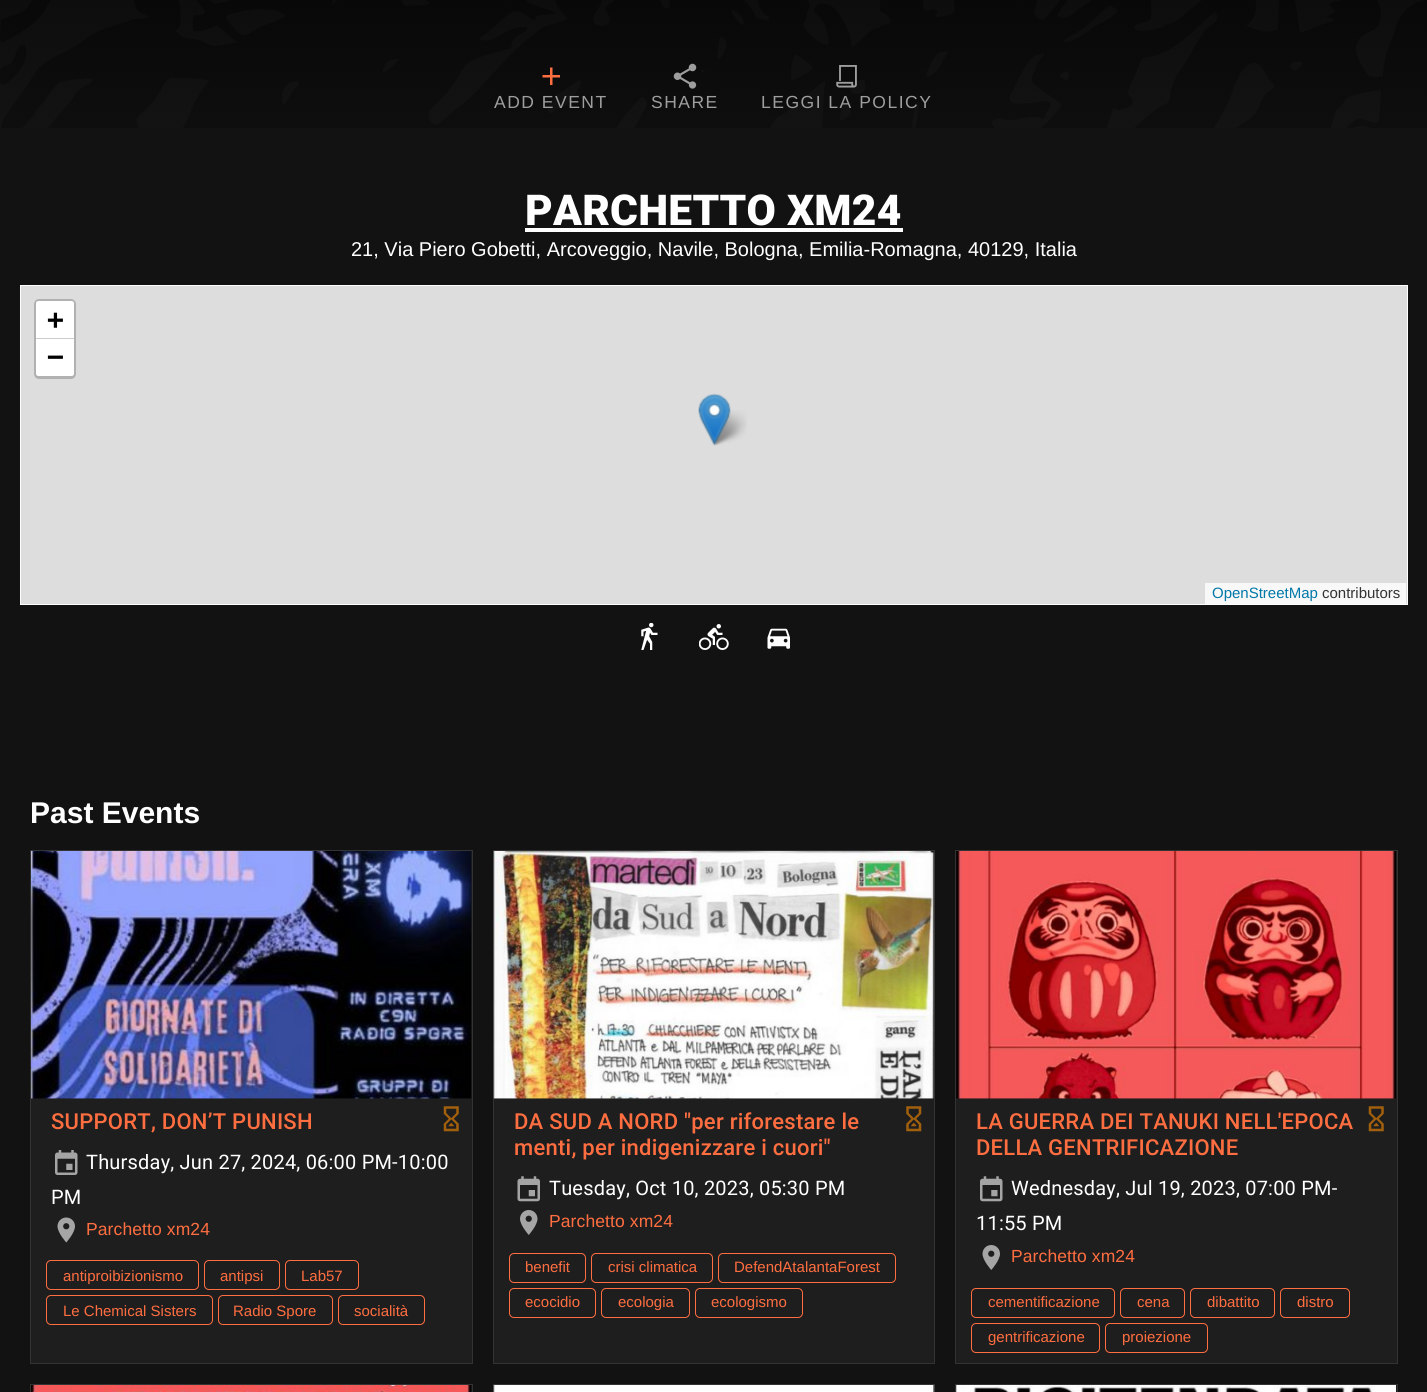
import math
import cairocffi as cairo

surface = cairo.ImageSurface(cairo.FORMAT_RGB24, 1427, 1392)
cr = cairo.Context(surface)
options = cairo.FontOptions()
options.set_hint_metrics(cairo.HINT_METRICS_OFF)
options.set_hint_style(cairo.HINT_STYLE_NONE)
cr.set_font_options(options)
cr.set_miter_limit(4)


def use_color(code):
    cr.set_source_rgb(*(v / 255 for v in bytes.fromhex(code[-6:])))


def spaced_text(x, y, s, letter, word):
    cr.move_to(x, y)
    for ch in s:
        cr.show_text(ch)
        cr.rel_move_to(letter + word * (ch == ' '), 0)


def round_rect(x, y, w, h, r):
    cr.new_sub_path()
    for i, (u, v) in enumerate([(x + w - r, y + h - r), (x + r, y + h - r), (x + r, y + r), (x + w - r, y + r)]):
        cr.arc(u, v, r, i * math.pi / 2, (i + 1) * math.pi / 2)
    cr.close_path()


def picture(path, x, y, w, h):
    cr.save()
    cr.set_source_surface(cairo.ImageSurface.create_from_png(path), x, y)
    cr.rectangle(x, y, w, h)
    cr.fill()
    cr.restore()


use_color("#121212")
cr.paint()
picture("img1.png", 0, 0, 1427, 128)
picture("img2.png", 542, 67, 18, 18)
cr.select_font_face("Liberation Sans")
cr.set_font_size(17.5)
use_color("#9e9e9e")
spaced_text(494, 108, "ADD EVENT", 1.5, 0)
picture("img3.png", 673, 63, 24, 26)
spaced_text(651, 108, "SHARE", 1.5, 0)
picture("img4.png", 836, 65, 21, 23)
spaced_text(761, 108, "LEGGI LA POLICY", 1.5, 0)
cr.select_font_face("Roboto Black")
cr.set_font_size(42.5)
use_color("#ffffff")
spaced_text(525, 225, "PARCHETTO XM24", 0.25, 0)
cr.rectangle(525, 228, 378, 4)
cr.fill()
cr.select_font_face("Liberation Sans")
cr.set_font_size(20)
cr.move_to(351, 256)
cr.show_text("21, Via Piero Gobetti, Arcoveggio, Navile, Bologna, Emilia-Romagna, 40129, Italia")
use_color("#dddddd")
cr.rectangle(20.5, 285.5, 1387, 319)
cr.fill_preserve()
use_color("#ffffff")
cr.set_line_width(1)
cr.stroke()
round_rect(35.5, 300.5, 39, 77, 3.5)
use_color("#b1b1b1")
cr.set_line_width(3)
cr.stroke()
use_color("#ffffff")
cr.new_path()
cr.move_to(38.5, 301)
cr.line_to(71.5, 301)
cr.curve_to(73, 301, 74, 302, 74, 303.5)
cr.line_to(74, 339)
cr.line_to(36, 339)
cr.line_to(36, 303.5)
cr.curve_to(36, 302, 37, 301, 38.5, 301)
cr.close_path()
cr.fill()
use_color("#cccccc")
cr.rectangle(36, 338, 38, 1)
cr.fill()
cr.select_font_face("DejaVu Sans Mono", cairo.FONT_SLANT_NORMAL, cairo.FONT_WEIGHT_BOLD)
cr.set_font_size(28)
use_color("#000000")
cr.move_to(47, 329)
cr.show_text("+")
use_color("#ffffff")
cr.new_path()
cr.move_to(36, 339)
cr.line_to(74, 339)
cr.line_to(74, 373.5)
cr.curve_to(74, 375, 73, 376, 71.5, 376)
cr.line_to(38.5, 376)
cr.curve_to(37, 376, 36, 375, 36, 373.5)
cr.close_path()
cr.fill()
use_color("#000000")
cr.move_to(47, 366)
cr.show_text("−")
use_color("#f8f8f8")
cr.rectangle(1205, 583, 201, 21)
cr.fill()
cr.select_font_face("Liberation Sans")
cr.set_font_size(15)
use_color("#0078a8")
cr.move_to(1212, 598)
cr.show_text("OpenStreetMap")
use_color("#333333")
cr.move_to(1322, 598)
cr.show_text("contributors")
picture("img6.png", 710, 410, 37, 36)
picture("img5.png", 698, 393, 33, 53)
picture("img7.png", 641, 623, 17, 27)
picture("img8.png", 699, 624, 30, 26)
picture("img9.png", 767, 628, 23, 21)
cr.select_font_face("Liberation Sans", cairo.FONT_SLANT_NORMAL, cairo.FONT_WEIGHT_BOLD)
cr.set_font_size(30)
use_color("#ffffff")
cr.move_to(30, 823)
cr.show_text("Past Events")
use_color("#1e1e1e")
cr.rectangle(30.5, 850.5, 442, 513)
cr.fill_preserve()
use_color("#333333")
cr.set_line_width(1)
cr.stroke()
picture("img10.png", 31, 851, 441, 248)
cr.select_font_face("Roboto Medium")
cr.set_font_size(22)
use_color("#ff6e40")
spaced_text(51, 1129, "SUPPORT, DON’T PUNISH", 0.25, 0)
picture("img11.png", 443, 1106, 16, 26)
picture("img12.png", 55, 1150, 23, 25)
cr.select_font_face("Roboto")
cr.set_font_size(20)
use_color("#ffffff")
spaced_text(86, 1169, "Thursday, Jun 27, 2024, 06:00 PM-10:00", 0.2, 0)
spaced_text(51, 1204, "PM", 0.2, 0)
picture("img13.png", 57, 1217, 18, 26)
cr.select_font_face("Liberation Sans")
cr.set_font_size(17.5)
use_color("#ff6e40")
spaced_text(86, 1235, "Parchetto xm24", 0.1, 0)
round_rect(46.5, 1260.5, 152, 29, 4.5)
cr.stroke()
cr.set_font_size(15)
cr.move_to(63, 1281)
cr.show_text("antiproibizionismo")
round_rect(204.5, 1260.5, 75, 29, 4.5)
cr.stroke()
cr.move_to(220, 1281)
cr.show_text("antipsi")
round_rect(285.5, 1260.5, 73, 29, 4.5)
cr.stroke()
cr.move_to(301, 1281)
cr.show_text("Lab57")
round_rect(46.5, 1295.5, 166, 29, 4.5)
cr.stroke()
cr.move_to(63, 1316)
cr.show_text("Le Chemical Sisters")
round_rect(218.5, 1295.5, 114, 29, 4.5)
cr.stroke()
cr.move_to(233, 1316)
cr.show_text("Radio Spore")
round_rect(338.5, 1295.5, 86, 29, 4.5)
cr.stroke()
cr.move_to(354, 1316)
cr.show_text("socialità")
use_color("#1e1e1e")
cr.rectangle(493.5, 850.5, 441, 513)
cr.fill_preserve()
use_color("#333333")
cr.stroke()
picture("img14.png", 493, 851, 442, 248)
cr.select_font_face("Roboto Medium")
cr.set_font_size(22)
use_color("#ff6e40")
spaced_text(514, 1129, "DA SUD A NORD \"per riforestare le", 0.25, 0)
spaced_text(514, 1155, "menti, per indigenizzare i cuori\"", 0.25, 0)
picture("img15.png", 906, 1106, 16, 26)
picture("img16.png", 517, 1176, 23, 26)
cr.select_font_face("Roboto")
cr.set_font_size(20)
use_color("#ffffff")
spaced_text(549, 1195, "Tuesday, Oct 10, 2023, 05:30 PM", 0.2, 0)
picture("img17.png", 520, 1210, 18, 25)
cr.select_font_face("Liberation Sans")
cr.set_font_size(17.5)
use_color("#ff6e40")
spaced_text(549, 1227, "Parchetto xm24", 0.1, 0)
round_rect(509.5, 1253.5, 76, 29, 4.5)
cr.stroke()
cr.set_font_size(15)
cr.move_to(525, 1272)
cr.show_text("benefit")
round_rect(591.5, 1253.5, 121, 29, 4.5)
cr.stroke()
cr.move_to(608, 1272)
cr.show_text("crisi climatica")
round_rect(718.5, 1253.5, 177, 29, 4.5)
cr.stroke()
cr.move_to(734, 1272)
cr.show_text("DefendAtalantaForest")
round_rect(509.5, 1288.5, 86, 29, 4.5)
cr.stroke()
cr.move_to(525, 1307)
cr.show_text("ecocidio")
round_rect(601.5, 1288.5, 88, 29, 4.5)
cr.stroke()
cr.move_to(618, 1307)
cr.show_text("ecologia")
round_rect(695.5, 1288.5, 107, 29, 4.5)
cr.stroke()
cr.move_to(711, 1307)
cr.show_text("ecologismo")
use_color("#1e1e1e")
cr.rectangle(955.5, 850.5, 442, 513)
cr.fill_preserve()
use_color("#333333")
cr.stroke()
picture("img18.png", 956, 851, 440, 248)
cr.select_font_face("Roboto Medium")
cr.set_font_size(22)
use_color("#ff6e40")
spaced_text(976, 1129, "LA GUERRA DEI TANUKI NELL'EPOCA", 0.25, 0)
spaced_text(976, 1155, "DELLA GENTRIFICAZIONE", 0.25, 0)
picture("img11.png", 1368, 1106, 16, 26)
picture("img19.png", 980, 1176, 23, 26)
cr.select_font_face("Roboto")
cr.set_font_size(20)
use_color("#ffffff")
spaced_text(1011, 1195, "Wednesday, Jul 19, 2023, 07:00 PM-", 0.2, 0)
spaced_text(976, 1230, "11:55 PM", 0.2, 0)
picture("img20.png", 982, 1245, 18, 25)
cr.select_font_face("Liberation Sans")
cr.set_font_size(17.5)
use_color("#ff6e40")
spaced_text(1011, 1262, "Parchetto xm24", 0.1, 0)
round_rect(971.5, 1288.5, 143, 29, 4.5)
cr.stroke()
cr.set_font_size(15)
cr.move_to(988, 1307)
cr.show_text("cementificazione")
round_rect(1120.5, 1288.5, 64, 29, 4.5)
cr.stroke()
cr.move_to(1137, 1307)
cr.show_text("cena")
round_rect(1190.5, 1288.5, 84, 29, 4.5)
cr.stroke()
cr.move_to(1207, 1307)
cr.show_text("dibattito")
round_rect(1280.5, 1288.5, 69, 29, 4.5)
cr.stroke()
cr.move_to(1297, 1307)
cr.show_text("distro")
round_rect(971.5, 1323.5, 128, 29, 4.5)
cr.stroke()
cr.move_to(988, 1342)
cr.show_text("gentrificazione")
round_rect(1105.5, 1323.5, 102, 29, 4.5)
cr.stroke()
cr.move_to(1122, 1342)
cr.show_text("proiezione")
use_color("#1e1e1e")
cr.rectangle(471, 1385, 2, 7)
cr.fill()
cr.rectangle(30.5, 1384.5, 442, 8)
use_color("#333333")
cr.stroke()
picture("img21.png", 31, 1385, 441, 7)
use_color("#1e1e1e")
cr.rectangle(493.5, 1384.5, 441, 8)
cr.fill_preserve()
use_color("#333333")
cr.stroke()
picture("img22.png", 493, 1385, 442, 7)
use_color("#1e1e1e")
cr.rectangle(955.5, 1384.5, 442, 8)
cr.fill_preserve()
use_color("#333333")
cr.stroke()
picture("img23.png", 956, 1385, 440, 7)
surface.write_to_png("result.png")
